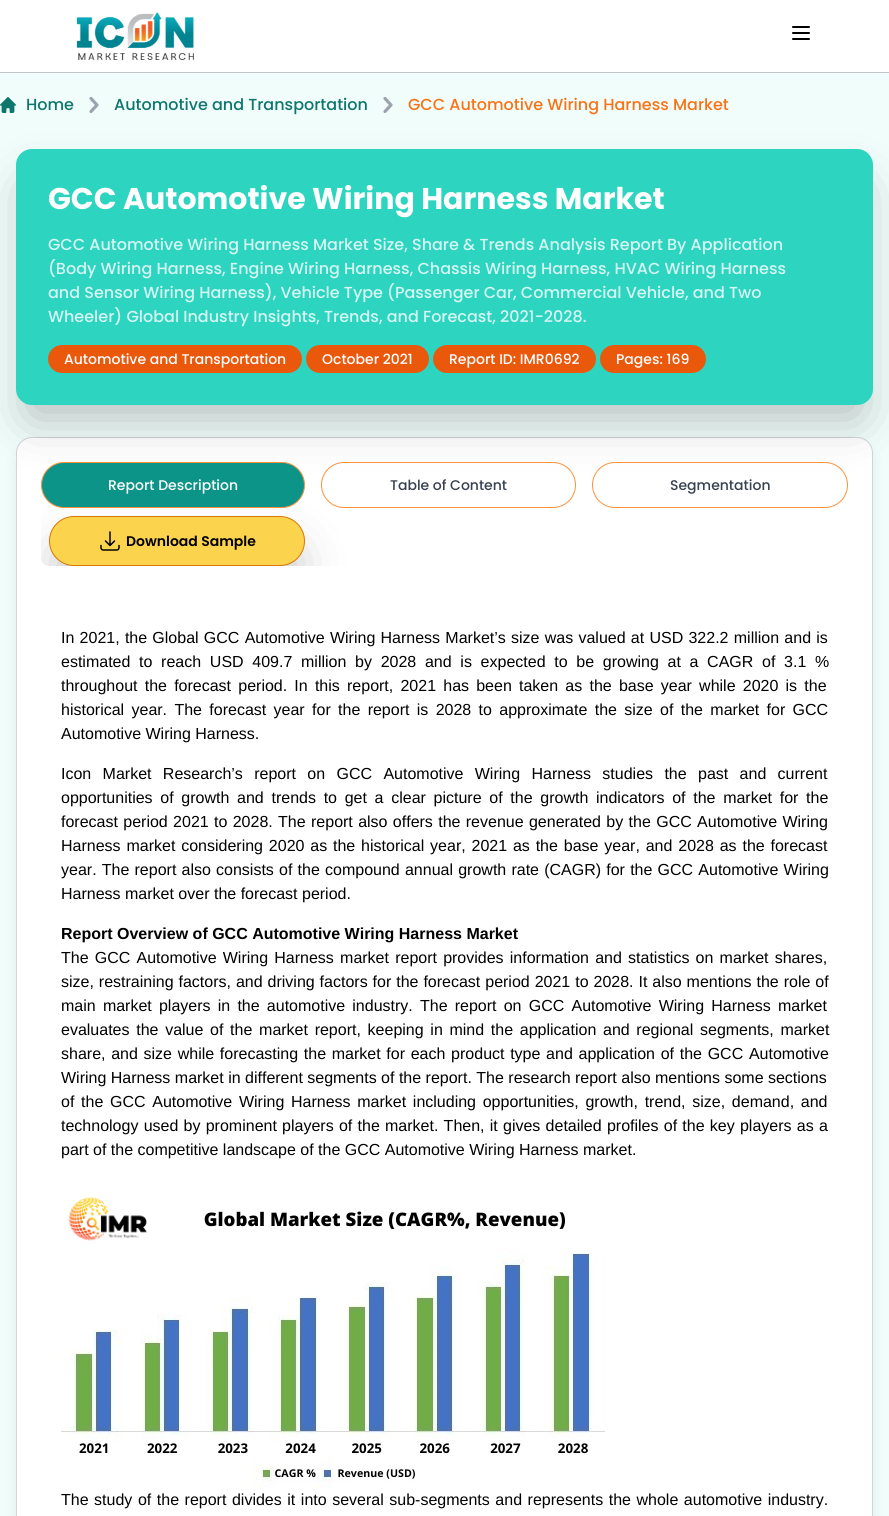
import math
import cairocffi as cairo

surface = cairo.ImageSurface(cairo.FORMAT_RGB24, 889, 1516)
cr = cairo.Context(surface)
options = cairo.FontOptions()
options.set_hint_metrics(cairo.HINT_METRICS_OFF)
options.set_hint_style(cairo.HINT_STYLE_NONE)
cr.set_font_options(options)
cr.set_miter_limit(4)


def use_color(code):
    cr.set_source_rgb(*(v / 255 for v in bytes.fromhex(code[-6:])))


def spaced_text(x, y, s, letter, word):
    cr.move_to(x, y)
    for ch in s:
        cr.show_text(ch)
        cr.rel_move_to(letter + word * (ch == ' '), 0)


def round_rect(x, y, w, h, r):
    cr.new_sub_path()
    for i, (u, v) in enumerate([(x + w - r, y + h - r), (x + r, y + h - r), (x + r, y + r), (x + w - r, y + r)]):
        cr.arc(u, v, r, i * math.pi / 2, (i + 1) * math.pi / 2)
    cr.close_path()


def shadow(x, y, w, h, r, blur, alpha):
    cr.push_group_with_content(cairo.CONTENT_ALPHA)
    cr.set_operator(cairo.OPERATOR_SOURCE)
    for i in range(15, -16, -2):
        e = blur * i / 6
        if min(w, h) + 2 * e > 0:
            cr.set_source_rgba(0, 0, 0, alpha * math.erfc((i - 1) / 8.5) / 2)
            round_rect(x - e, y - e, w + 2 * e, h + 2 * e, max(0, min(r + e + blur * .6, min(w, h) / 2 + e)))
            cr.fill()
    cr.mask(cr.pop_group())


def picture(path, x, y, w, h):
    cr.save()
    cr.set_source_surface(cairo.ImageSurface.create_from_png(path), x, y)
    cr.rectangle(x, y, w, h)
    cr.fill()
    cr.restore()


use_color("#f0fdfa")
cr.paint()
use_color("#ffffff")
cr.rectangle(0, 0, 889, 72)
cr.fill()
use_color("#c3c4c7")
cr.rectangle(0, 72, 889, 1)
cr.fill()
picture("img1.png", 76, 12, 118, 48)
cr.new_path()
cr.move_to(793, 27)
cr.line_to(809, 27)
cr.move_to(793, 33)
cr.line_to(809, 33)
cr.move_to(793, 39)
cr.line_to(809, 39)
use_color("#000000")
cr.set_line_cap(cairo.LINE_CAP_ROUND)
cr.set_line_join(cairo.LINE_JOIN_ROUND)
cr.stroke()
picture("img2.png", 0, 97, 16, 16)
cr.select_font_face("Poppins Medium")
cr.set_font_size(16)
use_color("#0f766e")
cr.move_to(26, 110)
cr.show_text("Home")
cr.new_path()
cr.move_to(91, 111.5)
cr.line_to(97, 105)
cr.line_to(91, 98.5)
use_color("#9ca3af")
cr.set_line_width(3.2)
cr.stroke()
use_color("#0f766e")
cr.move_to(114, 110)
cr.show_text("Automotive and Transportation")
cr.new_path()
cr.move_to(385, 111.5)
cr.line_to(391, 105)
cr.line_to(385, 98.5)
use_color("#9ca3af")
cr.stroke()
use_color("#f97316")
cr.move_to(408, 110)
cr.show_text("GCC Automotive Wiring Harness Market")
use_color("#000000")
shadow(19, 450, 851, 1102, 13, 7.5, 0.1)
use_color("#ffffff")
round_rect(16.5, 437.5, 856, 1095, 15.5)
cr.fill_preserve()
use_color("#d1d5db")
cr.set_line_width(1)
cr.set_line_cap(cairo.LINE_CAP_BUTT)
cr.set_line_join(cairo.LINE_JOIN_MITER)
cr.stroke()
use_color("#000000")
shadow(28, 186, 833, 232, 4, 25, 0.25)
use_color("#2dd4bf")
round_rect(16, 149, 857, 256, 16)
cr.fill()
cr.select_font_face("Poppins", cairo.FONT_SLANT_NORMAL, cairo.FONT_WEIGHT_BOLD)
cr.set_font_size(30)
use_color("#ffffff")
cr.move_to(48, 209)
cr.show_text("GCC Automotive Wiring Harness Market")
cr.select_font_face("Poppins Medium")
cr.set_font_size(16)
use_color("#d5f6f2")
cr.move_to(48, 250)
cr.show_text("GCC Automotive Wiring Harness Market Size, Share & Trends Analysis Report By Application")
cr.move_to(48, 274)
cr.show_text("(Body Wiring Harness, Engine Wiring Harness, Chassis Wiring Harness, HVAC Wiring Harness")
cr.move_to(48, 298)
cr.show_text("and Sensor Wiring Harness), Vehicle Type (Passenger Car, Commercial Vehicle, and Two")
cr.move_to(48, 322)
cr.show_text("Wheeler) Global Industry Insights, Trends, and Forecast, 2021-2028.")
use_color("#ea580c")
round_rect(48, 345, 254, 28, 14)
cr.fill()
cr.set_font_size(14)
use_color("#ffffff")
cr.move_to(64, 364)
cr.show_text("Automotive and Transportation")
use_color("#ea580c")
round_rect(306, 345, 123, 28, 14)
cr.fill()
use_color("#ffffff")
cr.move_to(322, 364)
cr.show_text("October 2021")
use_color("#ea580c")
round_rect(433, 345, 163, 28, 14)
cr.fill()
use_color("#ffffff")
cr.move_to(449, 364)
cr.show_text("Report ID: IMR0692")
use_color("#ea580c")
round_rect(600, 345, 106, 28, 14)
cr.fill()
use_color("#ffffff")
cr.move_to(616, 364)
cr.show_text("Pages: 169")
use_color("#0d9488")
round_rect(41.5, 462.5, 263, 45, 22.5)
cr.fill_preserve()
use_color("#fb923c")
cr.stroke()
use_color("#ffffff")
cr.move_to(108, 490)
cr.show_text("Report Description")
round_rect(321.5, 462.5, 254, 45, 22.5)
use_color("#fb923c")
cr.stroke()
use_color("#374151")
cr.move_to(390, 490)
cr.show_text("Table of Content")
round_rect(592.5, 462.5, 255, 45, 22.5)
use_color("#fb923c")
cr.stroke()
use_color("#374151")
cr.move_to(670, 490)
cr.show_text("Segmentation")
cr.save()
round_rect(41, 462, 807, 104, 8)
cr.clip()
use_color("#000000")
shadow(61, 553, 232, 26, 13, 25, 0.25)
cr.restore()
use_color("#fcd34d")
round_rect(49.5, 516.5, 255, 49, 24.5)
cr.fill_preserve()
use_color("#d97706")
cr.stroke()
picture("img3.png", 100, 531, 20, 20)
cr.select_font_face("Poppins SemiBold")
use_color("#000000")
cr.move_to(126, 546)
cr.show_text("Download Sample")
cr.select_font_face("Liberation Sans")
cr.set_font_size(16)
spaced_text(61, 643, "In 2021, the Global GCC Automotive Wiring Harness Market’s size was valued at USD 322.2 million and is", 0, 0.8)
spaced_text(61, 667, "estimated to reach USD 409.7 million by 2028 and is expected to be growing at a CAGR of 3.1 %", 0, 4.25)
spaced_text(61, 691, "throughout the forecast period. In this report, 2021 has been taken as the base year while 2020 is the", 0, 2.75)
spaced_text(61, 715, "historical year. The forecast year for the report is 2028 to approximate the size of the market for GCC", 0, 2.9)
cr.move_to(61, 739)
cr.show_text("Automotive Wiring Harness.")
spaced_text(61, 779, "Icon Market Research’s report on GCC Automotive Wiring Harness studies the past and current", 0, 6.9)
spaced_text(61, 803, "opportunities of growth and trends to get a clear picture of the growth indicators of the market for the", 0, 3.25)
spaced_text(61, 827, "forecast period 2021 to 2028. The report also offers the revenue generated by the GCC Automotive Wiring", 0, 0.9)
spaced_text(61, 851, "Harness market considering 2020 as the historical year, 2021 as the base year, and 2028 as the forecast", 0, 1.4)
spaced_text(61, 875, "year. The report also consists of the compound annual growth rate (CAGR) for the GCC Automotive Wiring", 0, 0.75)
cr.move_to(61, 899)
cr.show_text("Harness market over the forecast period.")
cr.select_font_face("Liberation Sans", cairo.FONT_SLANT_NORMAL, cairo.FONT_WEIGHT_BOLD)
cr.move_to(61, 939)
cr.show_text("Report Overview of GCC Automotive Wiring Harness Market")
cr.select_font_face("Liberation Sans")
spaced_text(61, 963, "The GCC Automotive Wiring Harness market report provides information and statistics on market shares,", 0, 1.75)
spaced_text(61, 987, "size, restraining factors, and driving factors for the forecast period 2021 to 2028. It also mentions the role of", 0, 0.5)
spaced_text(61, 1011, "main market players in the automotive industry. The report on GCC Automotive Wiring Harness market", 0, 2.75)
spaced_text(61, 1035, "evaluates the value of the market report, keeping in mind the application and regional segments, market", 0, 2.25)
spaced_text(61, 1059, "share, and size while forecasting the market for each product type and application of the GCC Automotive", 0, 1.25)
cr.move_to(61, 1083)
cr.show_text("Wiring Harness market in different segments of the report. The research report also mentions some sections")
spaced_text(61, 1107, "of the GCC Automotive Wiring Harness market including opportunities, growth, trend, size, demand, and", 0, 2.25)
spaced_text(61, 1131, "technology used by prominent players of the market. Then, it gives detailed profiles of the key players as a", 0, 0.8)
cr.move_to(61, 1155)
cr.show_text("part of the competitive landscape of the GCC Automotive Wiring Harness market.")
picture("img4.png", 61, 1197, 544, 291)
spaced_text(61, 1505, "The study of the report divides it into several sub-segments and represents the whole automotive industry.", 0, 1.1)
surface.write_to_png("result.png")
